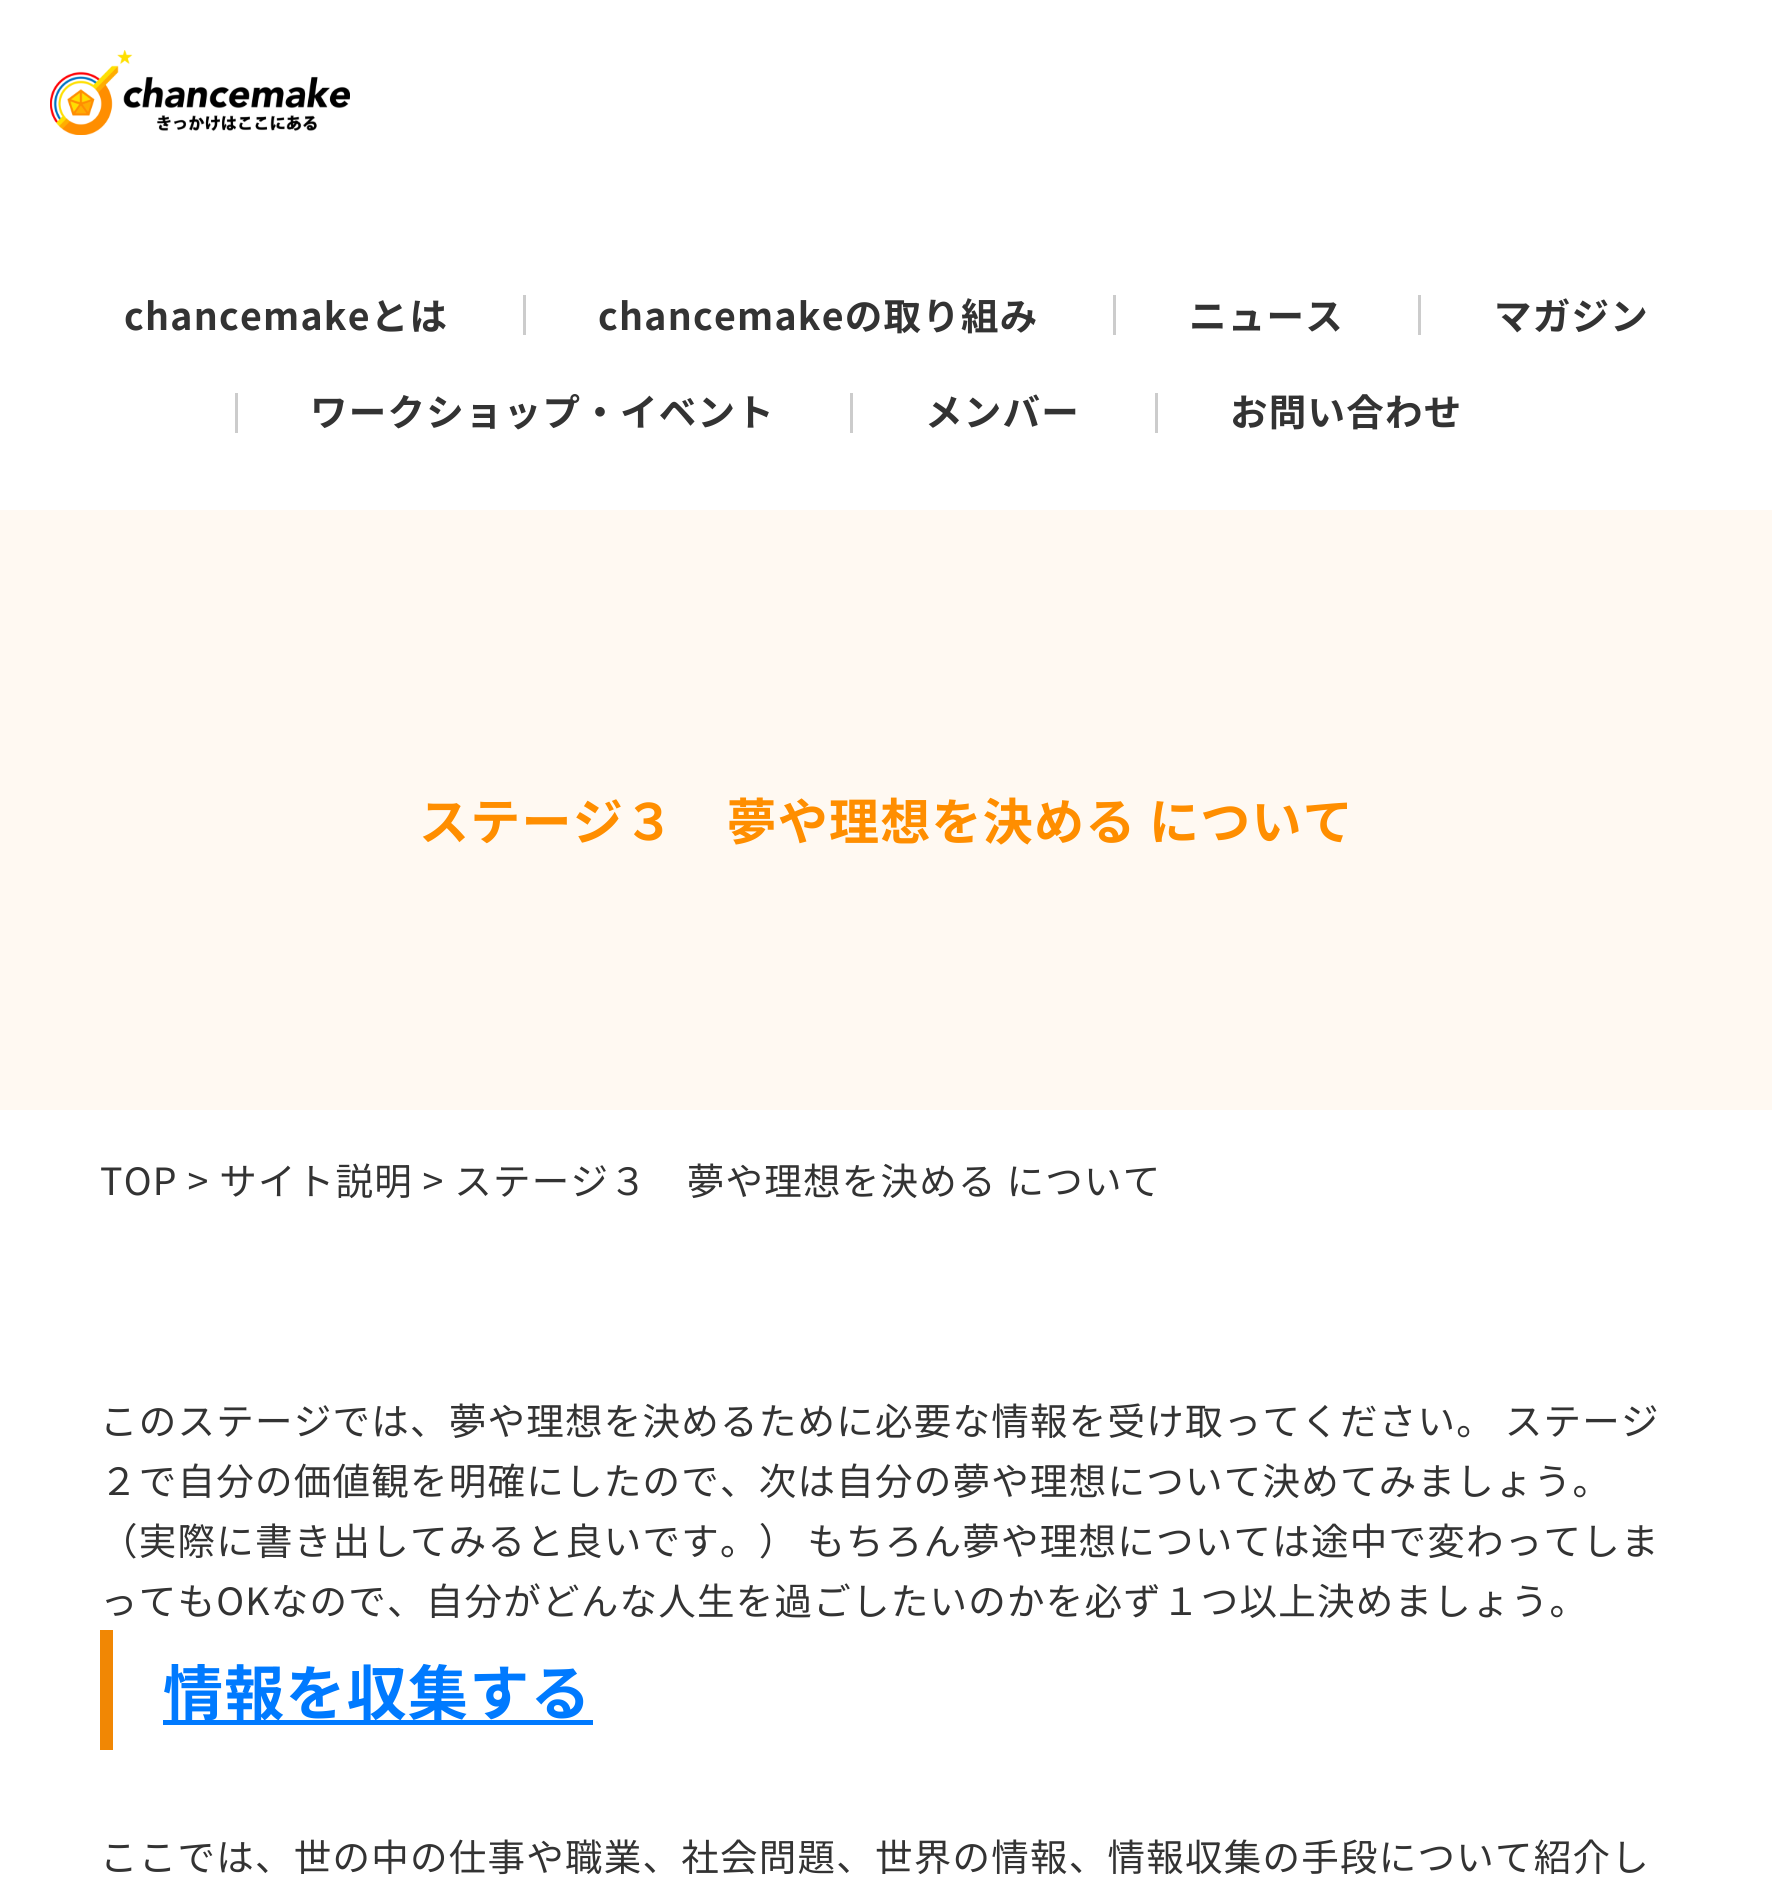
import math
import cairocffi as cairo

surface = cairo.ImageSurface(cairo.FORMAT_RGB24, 1772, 1886)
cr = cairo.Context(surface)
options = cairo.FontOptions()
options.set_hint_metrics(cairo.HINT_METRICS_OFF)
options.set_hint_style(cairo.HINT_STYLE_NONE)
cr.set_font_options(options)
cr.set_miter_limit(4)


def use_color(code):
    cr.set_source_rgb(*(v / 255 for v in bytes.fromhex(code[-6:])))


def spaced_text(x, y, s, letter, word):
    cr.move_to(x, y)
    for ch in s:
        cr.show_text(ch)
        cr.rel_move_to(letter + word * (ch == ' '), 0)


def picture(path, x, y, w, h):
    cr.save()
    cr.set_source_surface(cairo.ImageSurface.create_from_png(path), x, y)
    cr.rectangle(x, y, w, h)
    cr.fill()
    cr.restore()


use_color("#ffffff")
cr.paint()
picture("img1.png", 50, 50, 300, 85)
cr.select_font_face("Noto Sans JP", cairo.FONT_SLANT_NORMAL, cairo.FONT_WEIGHT_BOLD)
cr.set_font_size(37.5)
use_color("#333333")
spaced_text(124, 330, "chancemakeとは", 1.25, 0)
use_color("#cccccc")
cr.rectangle(523, 295, 3, 40)
cr.fill()
use_color("#333333")
spaced_text(598, 330, "chancemakeの取り組み", 1.25, 0)
use_color("#cccccc")
cr.rectangle(1113, 295, 3, 40)
cr.fill()
use_color("#333333")
spaced_text(1189, 330, "ニュース", 1.25, 0)
use_color("#cccccc")
cr.rectangle(1418, 295, 3, 40)
cr.fill()
use_color("#333333")
spaced_text(1494, 330, "マガジン", 1.25, 0)
use_color("#cccccc")
cr.rectangle(235, 393, 3, 40)
cr.fill()
use_color("#333333")
spaced_text(310, 426, "ワークショップ・イベント", 1.25, 0)
use_color("#cccccc")
cr.rectangle(850, 393, 3, 40)
cr.fill()
use_color("#333333")
spaced_text(925, 426, "メンバー", 1.25, 0)
use_color("#cccccc")
cr.rectangle(1155, 393, 3, 40)
cr.fill()
use_color("#333333")
spaced_text(1230, 426, "お問い合わせ", 1.25, 0)
use_color("#fff9f2")
cr.rectangle(0, 510, 1772, 600)
cr.fill()
cr.set_font_size(50)
use_color("#ff8e00")
spaced_text(419, 840, "ステージ３　夢や理想を決める について", 1.25, 0)
cr.select_font_face("Noto Sans JP")
cr.set_font_size(37.5)
use_color("#333333")
spaced_text(100, 1195, "TOP > サイト説明 > ステージ３　夢や理想を決める について", 1.25, 0)
spaced_text(100, 1435, "このステージでは、夢や理想を決めるために必要な情報を受け取ってください。 ステージ", 1.25, 0)
spaced_text(100, 1495, "２で自分の価値観を明確にしたので、次は自分の夢や理想について決めてみましょう。", 1.25, 0)
spaced_text(100, 1555, "（実際に書き出してみると良いです。） もちろん夢や理想については途中で変わってしま", 1.25, 0)
spaced_text(100, 1615, "ってもOKなので、自分がどんな人生を過ごしたいのかを必ず１つ以上決めましょう。", 1.25, 0)
use_color("#f18704")
cr.rectangle(100, 1630, 13, 120)
cr.fill()
use_color("#007aff")
cr.rectangle(163, 1720, 430, 5)
cr.fill()
cr.select_font_face("Noto Sans JP", cairo.FONT_SLANT_NORMAL, cairo.FONT_WEIGHT_BOLD)
cr.set_font_size(60)
spaced_text(163, 1715, "情報を収集する", 1.25, 0)
cr.select_font_face("Noto Sans JP")
cr.set_font_size(37.5)
use_color("#333333")
spaced_text(100, 1871, "ここでは、世の中の仕事や職業、社会問題、世界の情報、情報収集の手段について紹介し", 1.25, 0)
surface.write_to_png("result.png")
